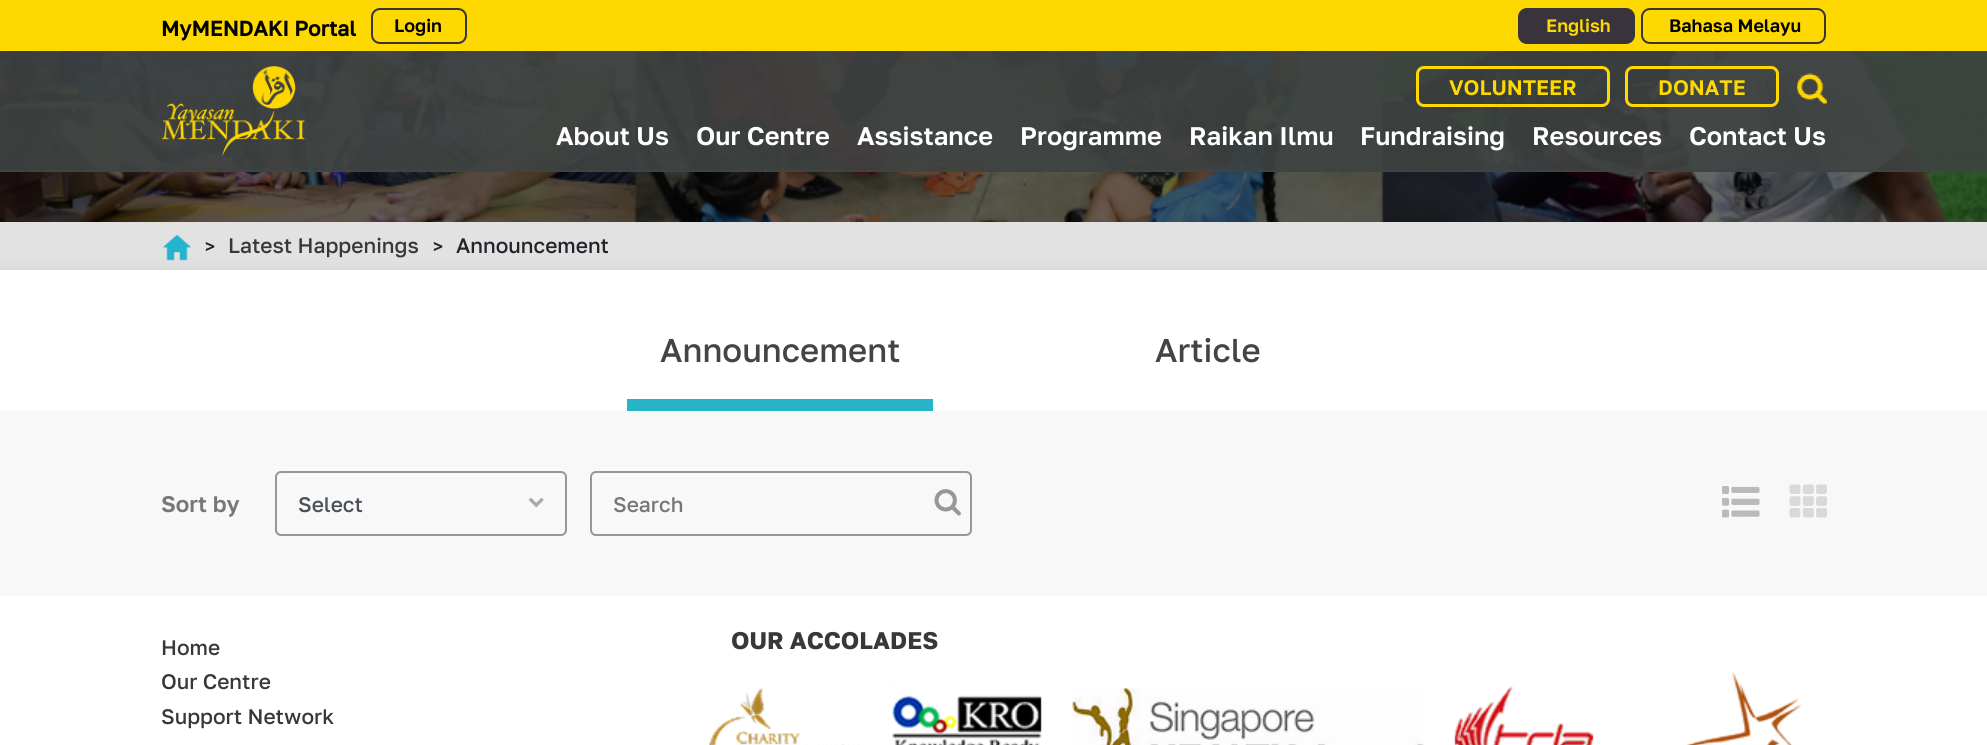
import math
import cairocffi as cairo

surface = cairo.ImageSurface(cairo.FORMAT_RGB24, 1987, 745)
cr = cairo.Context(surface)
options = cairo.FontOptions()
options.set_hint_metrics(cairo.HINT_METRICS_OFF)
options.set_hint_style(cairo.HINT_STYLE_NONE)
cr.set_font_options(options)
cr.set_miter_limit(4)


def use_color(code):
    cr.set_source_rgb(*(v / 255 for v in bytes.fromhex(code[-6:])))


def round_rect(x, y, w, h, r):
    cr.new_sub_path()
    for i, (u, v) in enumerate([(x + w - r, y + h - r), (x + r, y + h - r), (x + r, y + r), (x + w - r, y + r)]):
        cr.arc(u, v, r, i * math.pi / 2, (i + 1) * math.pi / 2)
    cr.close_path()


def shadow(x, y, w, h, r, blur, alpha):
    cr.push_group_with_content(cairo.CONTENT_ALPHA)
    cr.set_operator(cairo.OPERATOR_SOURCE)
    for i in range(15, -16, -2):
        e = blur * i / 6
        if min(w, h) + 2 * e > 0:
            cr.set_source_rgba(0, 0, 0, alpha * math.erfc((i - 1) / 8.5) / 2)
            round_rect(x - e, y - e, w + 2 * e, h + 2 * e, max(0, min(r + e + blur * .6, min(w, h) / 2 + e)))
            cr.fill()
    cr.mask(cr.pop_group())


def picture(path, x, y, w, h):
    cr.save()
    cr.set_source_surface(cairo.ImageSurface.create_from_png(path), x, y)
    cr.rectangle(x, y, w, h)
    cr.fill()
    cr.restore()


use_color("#e2e2e2")
cr.paint()
use_color("#fdd901")
cr.rectangle(0, 0, 1987, 51)
cr.fill()
cr.select_font_face("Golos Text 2", cairo.FONT_SLANT_NORMAL, cairo.FONT_WEIGHT_BOLD)
cr.set_font_size(21)
use_color("#000000")
cr.move_to(161, 36)
cr.show_text("MyMENDAKI Portal")
round_rect(372, 9, 94, 34, 8)
use_color("#39343b")
cr.stroke()
cr.select_font_face("Golos Text SemiBold")
cr.set_font_size(18)
use_color("#000000")
cr.move_to(394, 32)
cr.show_text("Login")
use_color("#39343b")
round_rect(1519, 9, 115, 34, 8)
cr.fill_preserve()
cr.stroke()
use_color("#fdd901")
cr.move_to(1546, 32)
cr.show_text("English")
round_rect(1642, 9, 183, 34, 8)
use_color("#39343b")
cr.stroke()
use_color("#000000")
cr.move_to(1669, 32)
cr.show_text("Bahasa Melayu")
picture("img3.png", 0, 51, 1987, 171)
cr.set_source_rgba(0.247, 0.263, 0.259, 0.9)
cr.rectangle(0, 51, 1987, 119)
cr.fill()
use_color("#3f4342")
cr.rectangle(0, 170, 1987, 2)
cr.fill()
picture("img1.png", 162, 66, 143, 90)
round_rect(1417.5, 67.5, 191, 38, 6.5)
use_color("#fdd901")
cr.set_line_width(3)
cr.stroke()
cr.set_font_size(21)
cr.move_to(1449, 95)
cr.show_text("VOLUNTEER")
round_rect(1626.5, 67.5, 151, 38, 6.5)
cr.stroke()
cr.move_to(1658, 95)
cr.show_text("DONATE")
picture("img2.png", 1797, 73, 30, 31)
cr.set_font_size(25.5)
use_color("#ffffff")
cr.move_to(556, 145)
cr.show_text("About Us")
cr.move_to(696, 145)
cr.show_text("Our Centre")
cr.move_to(857, 145)
cr.show_text("Assistance")
cr.move_to(1020, 145)
cr.show_text("Programme")
cr.move_to(1189, 145)
cr.show_text("Raikan Ilmu")
cr.move_to(1360, 145)
cr.show_text("Fundraising")
cr.move_to(1532, 145)
cr.show_text("Resources")
cr.move_to(1689, 145)
cr.show_text("Contact Us")
use_color("#cccccc")
shadow(2, 272, 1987, 141, 0, 7.5, 1)
picture("img4.png", 163, 234, 28, 27)
cr.select_font_face("Golos Text Medium")
cr.set_font_size(18)
use_color("#212529")
cr.move_to(205, 253)
cr.show_text(">")
cr.set_font_size(21)
use_color("#363a36")
cr.move_to(228, 253)
cr.show_text("Latest Happenings")
cr.set_font_size(18)
use_color("#212529")
cr.move_to(433, 253)
cr.show_text(">")
cr.set_font_size(21)
cr.move_to(456, 253)
cr.show_text("Announcement")
use_color("#ffffff")
cr.rectangle(0, 270, 1987, 141)
cr.fill()
cr.set_font_size(33)
use_color("#444444")
cr.move_to(660, 362)
cr.show_text("Announcement")
use_color("#26b5c6")
cr.rectangle(627, 399, 306, 12)
cr.fill()
use_color("#444444")
cr.move_to(1155, 362)
cr.show_text("Article")
use_color("#f8f8f8")
cr.rectangle(0, 411, 1987, 185)
cr.fill()
cr.select_font_face("Golos Text SemiBold")
cr.set_font_size(22.5)
use_color("#777777")
cr.move_to(161, 512)
cr.show_text("Sort by")
round_rect(276, 472, 290, 63, 5)
use_color("#979797")
cr.set_line_width(2)
cr.stroke()
cr.select_font_face("Golos Text Medium")
cr.set_font_size(21)
use_color("#495057")
cr.move_to(298, 512)
cr.show_text("Select")
picture("img5.png", 528, 497, 16, 11)
round_rect(591, 472, 380, 63, 5)
use_color("#979797")
cr.stroke()
use_color("#777777")
cr.move_to(613, 512)
cr.show_text("Search")
picture("img6.png", 934, 489, 27, 27)
picture("img7.png", 1722, 486, 38, 32)
picture("img8.png", 1789, 484, 38, 34)
use_color("#ffffff")
cr.rectangle(0, 596, 1987, 149)
cr.fill()
use_color("#363a36")
cr.move_to(161, 655)
cr.show_text("Home")
cr.move_to(161, 689)
cr.show_text("Our Centre")
cr.move_to(161, 724)
cr.show_text("Support Network")
cr.select_font_face("Golos Text", cairo.FONT_SLANT_NORMAL, cairo.FONT_WEIGHT_BOLD)
cr.set_font_size(24)
cr.move_to(731, 649)
cr.show_text("OUR ACCOLADES")
picture("img9.png", 709, 672, 1093, 73)
surface.write_to_png("result.png")
